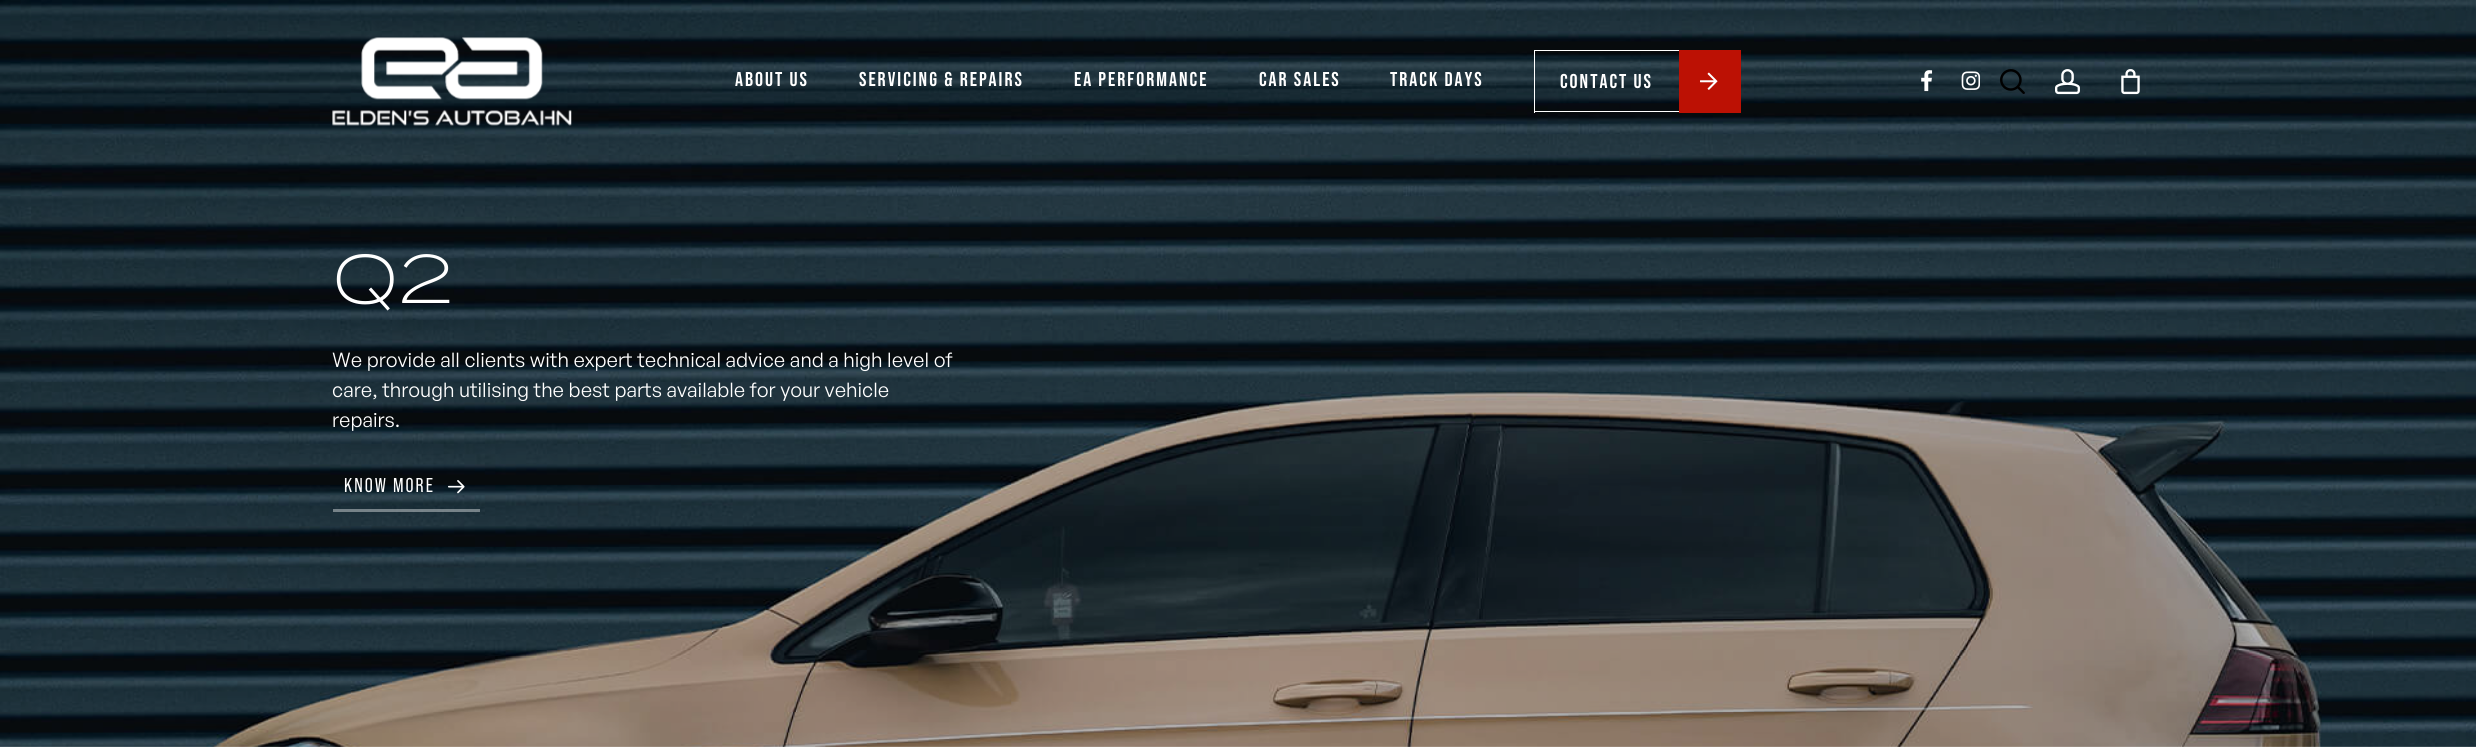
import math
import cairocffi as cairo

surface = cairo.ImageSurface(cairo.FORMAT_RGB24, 2476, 747)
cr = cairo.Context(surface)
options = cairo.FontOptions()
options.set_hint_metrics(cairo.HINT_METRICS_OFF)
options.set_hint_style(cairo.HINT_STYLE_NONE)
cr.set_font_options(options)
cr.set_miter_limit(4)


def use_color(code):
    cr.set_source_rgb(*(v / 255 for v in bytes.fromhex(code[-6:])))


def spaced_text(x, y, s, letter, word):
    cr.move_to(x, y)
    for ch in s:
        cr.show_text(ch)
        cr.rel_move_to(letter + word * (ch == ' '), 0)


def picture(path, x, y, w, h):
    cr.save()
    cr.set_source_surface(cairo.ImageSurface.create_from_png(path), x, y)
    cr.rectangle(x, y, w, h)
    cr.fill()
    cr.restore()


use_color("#ffffff")
cr.paint()
picture("img8.png", 0, 0, 2476, 747)
picture("img1.png", 332, 37, 240, 89)
cr.select_font_face("Bebas Neue", cairo.FONT_SLANT_NORMAL, cairo.FONT_WEIGHT_BOLD)
cr.set_font_size(20)
use_color("#ffffff")
spaced_text(735, 86, "ABOUT US", 2, 0)
spaced_text(859, 86, "SERVICING & REPAIRS", 2, 0)
spaced_text(1074, 86, "EA PERFORMANCE", 2, 0)
spaced_text(1259, 86, "CAR SALES", 2, 0)
spaced_text(1390, 86, "TRACK DAYS", 2, 0)
cr.rectangle(1534, 50, 145, 1)
cr.fill()
cr.rectangle(1534, 111, 145, 1)
cr.fill()
cr.rectangle(1534, 50, 1, 63)
cr.fill()
spaced_text(1560, 88, "CONTACT US", 2, 0)
use_color("#bc1104")
cr.rectangle(1679, 50, 62, 63)
cr.fill()
picture("img2.png", 1700, 72, 18, 18)
picture("img3.png", 1921, 70, 12, 22)
picture("img4.png", 1961, 71, 19, 19)
picture("img5.png", 2000, 69, 25, 25)
picture("img6.png", 2055, 69, 25, 26)
picture("img7.png", 2121, 69, 19, 26)
cr.select_font_face("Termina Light")
cr.set_font_size(68)
use_color("#ffffff")
cr.move_to(332, 303)
cr.show_text("Q2")
cr.select_font_face("General Sans")
cr.set_font_size(20)
cr.move_to(332, 367)
cr.show_text("We provide all clients with expert technical advice and a high level of")
cr.move_to(332, 397)
cr.show_text("care, through utilising the best parts available for your vehicle")
cr.move_to(332, 427)
cr.show_text("repairs.")
cr.select_font_face("Bebas Neue")
spaced_text(344, 492, "KNOW MORE", 2, 0)
picture("img9.png", 448, 480, 17, 14)
cr.set_source_rgba(1, 1, 1, 0.4)
cr.rectangle(333, 509, 147, 3)
cr.fill()
surface.write_to_png("result.png")
